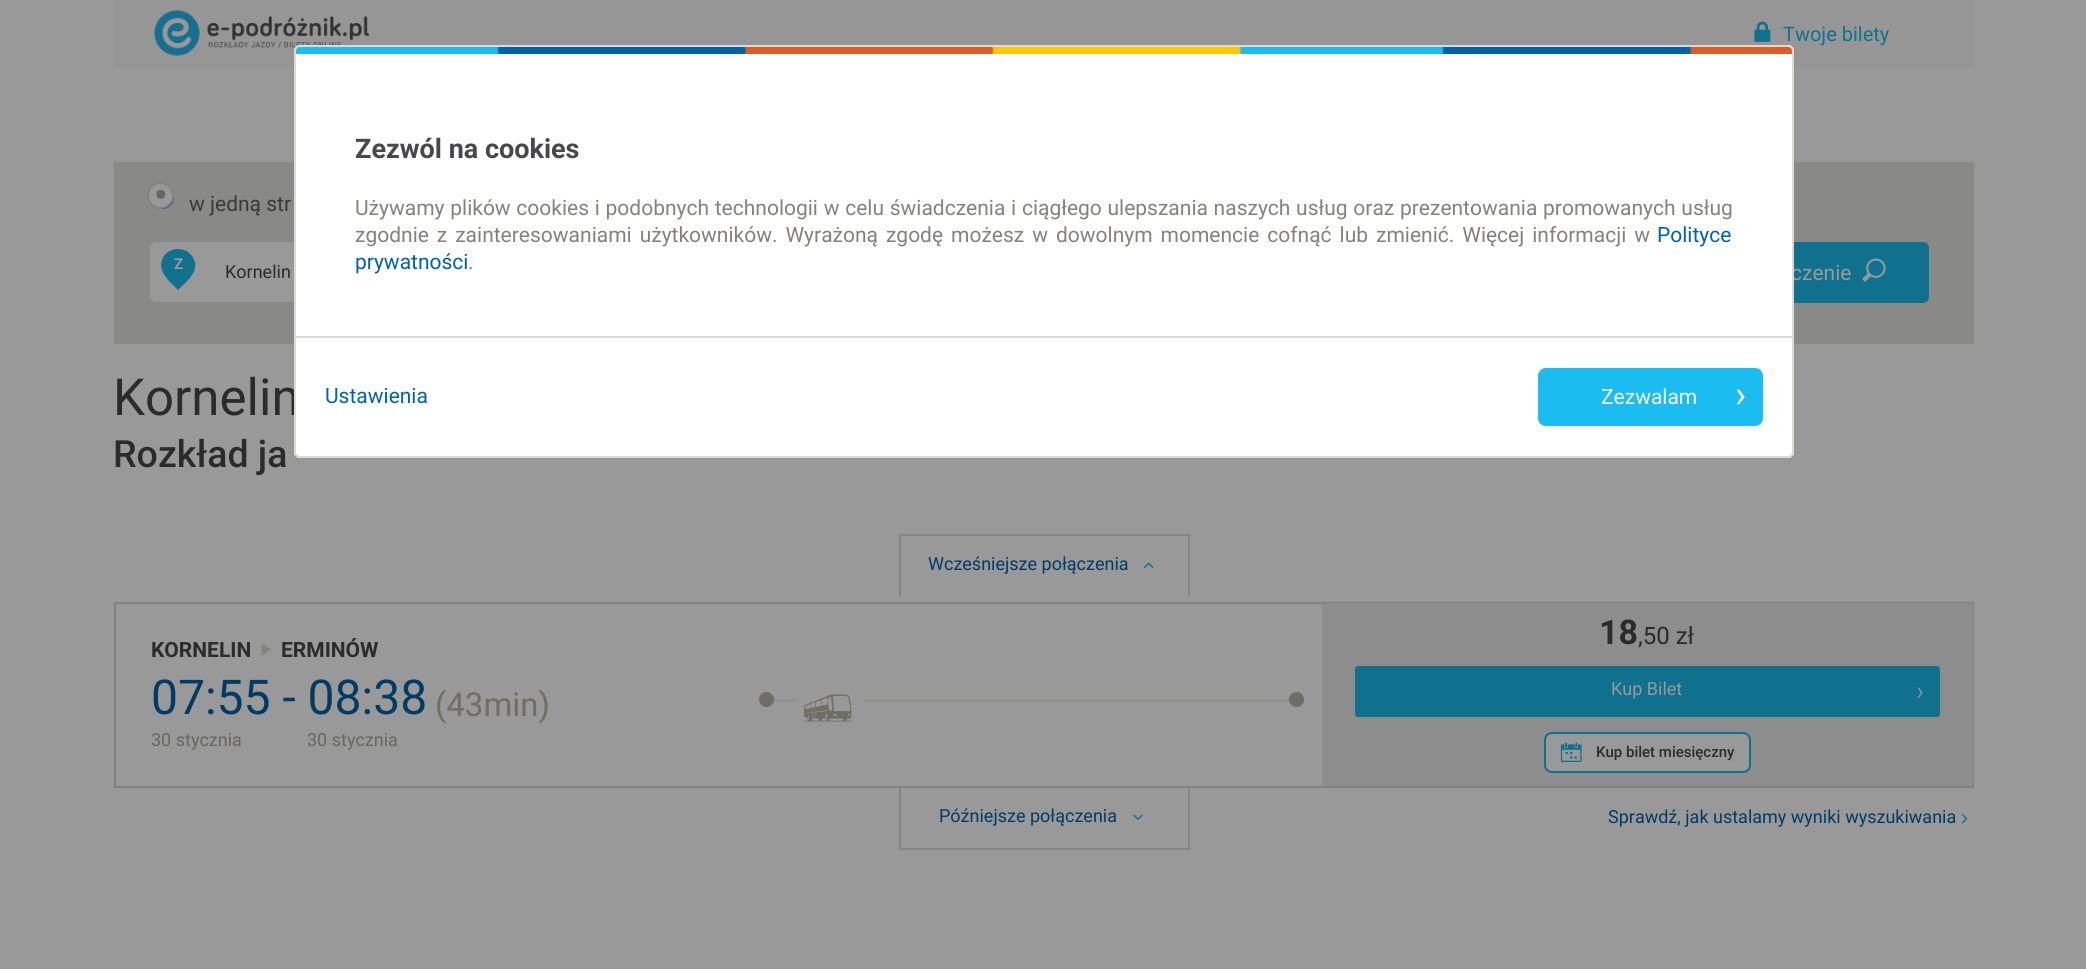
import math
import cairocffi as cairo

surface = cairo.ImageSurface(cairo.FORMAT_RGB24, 2086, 969)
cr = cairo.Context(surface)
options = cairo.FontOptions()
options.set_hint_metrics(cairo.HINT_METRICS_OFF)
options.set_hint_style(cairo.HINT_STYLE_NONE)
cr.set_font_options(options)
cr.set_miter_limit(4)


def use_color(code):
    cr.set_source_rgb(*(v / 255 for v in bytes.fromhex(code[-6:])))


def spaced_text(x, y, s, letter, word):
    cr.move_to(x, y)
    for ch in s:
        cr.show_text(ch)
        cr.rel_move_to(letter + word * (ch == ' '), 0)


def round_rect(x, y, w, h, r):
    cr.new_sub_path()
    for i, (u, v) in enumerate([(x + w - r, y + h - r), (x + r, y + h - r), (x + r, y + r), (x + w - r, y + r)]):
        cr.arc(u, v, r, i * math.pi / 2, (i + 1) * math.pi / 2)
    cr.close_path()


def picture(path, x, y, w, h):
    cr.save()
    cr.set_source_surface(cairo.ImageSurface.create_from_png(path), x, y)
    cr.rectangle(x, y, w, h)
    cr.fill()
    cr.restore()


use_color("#999999")
cr.paint()
use_color("#979696")
cr.rectangle(114, 0, 1860, 68)
cr.fill()
picture("img1.png", 154, 10, 215, 46)
picture("img2.png", 1754, 21, 17, 21)
cr.select_font_face("Roboto")
cr.set_font_size(20)
use_color("#10718f")
cr.move_to(1783, 41)
cr.show_text("Twoje bilety")
use_color("#898988")
cr.rectangle(114, 162, 1860, 182)
cr.fill()
cr.arc(162, 197, 11, 0, 2 * math.pi)
use_color("#004699")
cr.stroke()
use_color("#999999")
cr.arc(160.5, 195.5, 12.5, 0, 2 * math.pi)
cr.fill_preserve()
use_color("#848380")
cr.stroke()
cr.select_font_face("Roboto", cairo.FONT_SLANT_NORMAL, cairo.FONT_WEIGHT_BOLD)
cr.set_font_size(37.5)
use_color("#676661")
cr.move_to(154, 208)
cr.show_text("•")
cr.select_font_face("Roboto")
cr.set_font_size(21)
use_color("#3a3a3c")
cr.move_to(189, 211)
cr.show_text("w jedną str")
use_color("#999999")
cr.new_path()
cr.move_to(156, 242)
cr.line_to(624, 242)
cr.line_to(624, 302)
cr.line_to(156, 302)
cr.curve_to(152.5, 302, 150, 299.5, 150, 296)
cr.line_to(150, 248)
cr.curve_to(150, 244.5, 152.5, 242, 156, 242)
cr.close_path()
cr.fill()
use_color("#10718f")
cr.new_path()
cr.move_to(178, 249)
cr.curve_to(173, 249, 167, 251, 164, 256)
cr.curve_to(155, 270, 169, 281, 178, 290)
cr.curve_to(187, 281, 202, 270, 192, 256)
cr.curve_to(189, 252, 184, 249, 178, 249)
cr.close_path()
cr.fill()
cr.select_font_face("Roboto", cairo.FONT_SLANT_NORMAL, cairo.FONT_WEIGHT_BOLD)
cr.set_font_size(15)
use_color("#999999")
cr.move_to(174, 269)
cr.show_text("Z")
cr.select_font_face("Roboto")
cr.set_font_size(18)
use_color("#2b2b2c")
cr.move_to(225, 278)
cr.show_text("Kornelin")
use_color("#10718f")
round_rect(1643, 242, 286, 61, 6)
cr.fill()
cr.set_font_size(21)
use_color("#999999")
cr.move_to(1791, 280)
cr.show_text("czenie")
picture("img3.png", 1862, 258, 24, 24)
cr.set_font_size(51)
use_color("#2b2b2c")
cr.move_to(113, 415)
cr.show_text("Kornelin")
cr.select_font_face("Roboto Medium")
cr.set_font_size(37.5)
cr.move_to(113, 467)
cr.show_text("Rozkład ja")
use_color("#858585")
cr.rectangle(899, 534, 291, 2)
cr.fill()
cr.rectangle(1188, 534, 2, 62)
cr.fill()
cr.rectangle(899, 534, 2, 62)
cr.fill()
cr.select_font_face("Roboto")
cr.set_font_size(18)
use_color("#003b66")
cr.move_to(928, 570)
cr.show_text("Wcześniejsze połączenia")
picture("img4.png", 1144, 562, 10, 6)
cr.rectangle(115, 603, 1858, 184)
use_color("#818181")
cr.stroke()
cr.select_font_face("Roboto", cairo.FONT_SLANT_NORMAL, cairo.FONT_WEIGHT_BOLD)
cr.set_font_size(21)
use_color("#2b2b2c")
cr.move_to(151, 657)
cr.show_text("KORNELIN")
use_color("#848380")
cr.new_path()
cr.move_to(271.5, 649.5)
cr.line_to(261.5, 655.5)
cr.line_to(261.5, 643.5)
cr.close_path()
cr.fill()
use_color("#2b2b2c")
cr.move_to(281, 657)
cr.show_text("ERMINÓW")
cr.select_font_face("Roboto")
cr.set_font_size(48)
use_color("#003b66")
cr.move_to(151, 714)
cr.show_text("07:55 - 08:38")
cr.set_font_size(18)
use_color("#676661")
cr.move_to(151, 746)
cr.show_text("30 stycznia")
cr.set_font_size(33)
use_color("#706d67")
cr.move_to(435, 716)
cr.show_text("(43min)")
cr.set_font_size(18)
use_color("#676661")
cr.move_to(307, 746)
cr.show_text("30 stycznia")
use_color("#929290")
cr.rectangle(759, 699, 545, 3)
cr.fill()
use_color("#999999")
cr.arc(830, 705, 33, 0, 2 * math.pi)
cr.fill()
picture("img5.png", 804, 694, 48, 28)
use_color("#706d67")
cr.arc(766.5, 699.5, 7.5, 0, 2 * math.pi)
cr.fill()
cr.arc(1296.5, 699.5, 7.5, 0, 2 * math.pi)
cr.fill()
use_color("#8d8d8d")
cr.rectangle(1322, 603, 651, 183)
cr.fill()
cr.select_font_face("Roboto", cairo.FONT_SLANT_NORMAL, cairo.FONT_WEIGHT_BOLD)
cr.set_font_size(34)
use_color("#2b2b2c")
cr.move_to(1599, 644)
cr.show_text("18")
cr.select_font_face("Roboto")
cr.set_font_size(24)
cr.move_to(1638, 644)
cr.show_text(",50 zł")
use_color("#10718f")
round_rect(1355, 666, 585, 51, 3)
cr.fill()
cr.set_font_size(18)
use_color("#999999")
cr.move_to(1611, 695)
cr.show_text("Kup Bilet")
cr.select_font_face("Roboto Light")
cr.set_font_size(27)
cr.move_to(1916, 700)
cr.show_text("›")
round_rect(1545, 733, 205, 39, 7)
cr.fill_preserve()
use_color("#10718f")
cr.stroke()
picture("img6.png", 1560, 742, 22, 20)
cr.select_font_face("Roboto Medium")
cr.set_font_size(15)
use_color("#2b2b2c")
cr.move_to(1596, 757)
cr.show_text("Kup bilet miesięczny")
use_color("#858585")
cr.rectangle(1188, 788, 2, 61)
cr.fill()
cr.rectangle(899, 848, 291, 2)
cr.fill()
cr.rectangle(899, 788, 2, 61)
cr.fill()
cr.select_font_face("Roboto")
cr.set_font_size(18)
use_color("#003b66")
cr.move_to(939, 822)
cr.show_text("Późniejsze połączenia")
picture("img7.png", 1133, 814, 10, 6)
cr.move_to(1608, 823)
cr.show_text("Sprawdź, jak ustalamy wyniki wyszukiwania")
picture("img8.png", 1961, 814, 7, 10)
use_color("#ffffff")
round_rect(294, 45, 1500, 413, 6)
cr.fill()
picture("img9.png", 293, 46, 1502, 8)
round_rect(295, 46, 1498, 411, 5)
use_color("#dcdbd6")
cr.stroke()
cr.select_font_face("Roboto", cairo.FONT_SLANT_NORMAL, cairo.FONT_WEIGHT_BOLD)
cr.set_font_size(27)
use_color("#48484a")
cr.move_to(355, 158)
cr.show_text("Zezwól na cookies")
cr.select_font_face("Roboto")
cr.set_font_size(21)
use_color("#86827b")
spaced_text(355, 215, "Używamy plików cookies i podobnych technologii w celu świadczenia i ciągłego ulepszania naszych usług oraz prezentowania promowanych usług", 0, 0.5)
spaced_text(355, 242, "zgodnie z zainteresowaniami użytkowników. Wyrażoną zgodę możesz w dowolnym momencie cofnąć lub zmienić. Więcej informacji w", 0, 2.75)
use_color("#0063aa")
cr.move_to(1657, 242)
cr.show_text("Polityce")
cr.move_to(355, 269)
cr.show_text("prywatności")
use_color("#86827b")
cr.move_to(468, 269)
cr.show_text(".")
use_color("#dcdbd6")
cr.rectangle(296, 336, 1497, 2)
cr.fill()
use_color("#0063aa")
cr.move_to(325, 403)
cr.show_text("Ustawienia")
use_color("#1bbcef")
round_rect(1538, 368, 225, 58, 8)
cr.fill()
use_color("#ffffff")
cr.move_to(1601, 404)
cr.show_text("Zezwalam")
cr.set_font_size(37.5)
cr.move_to(1735, 407)
cr.show_text("›")
surface.write_to_png("result.png")
